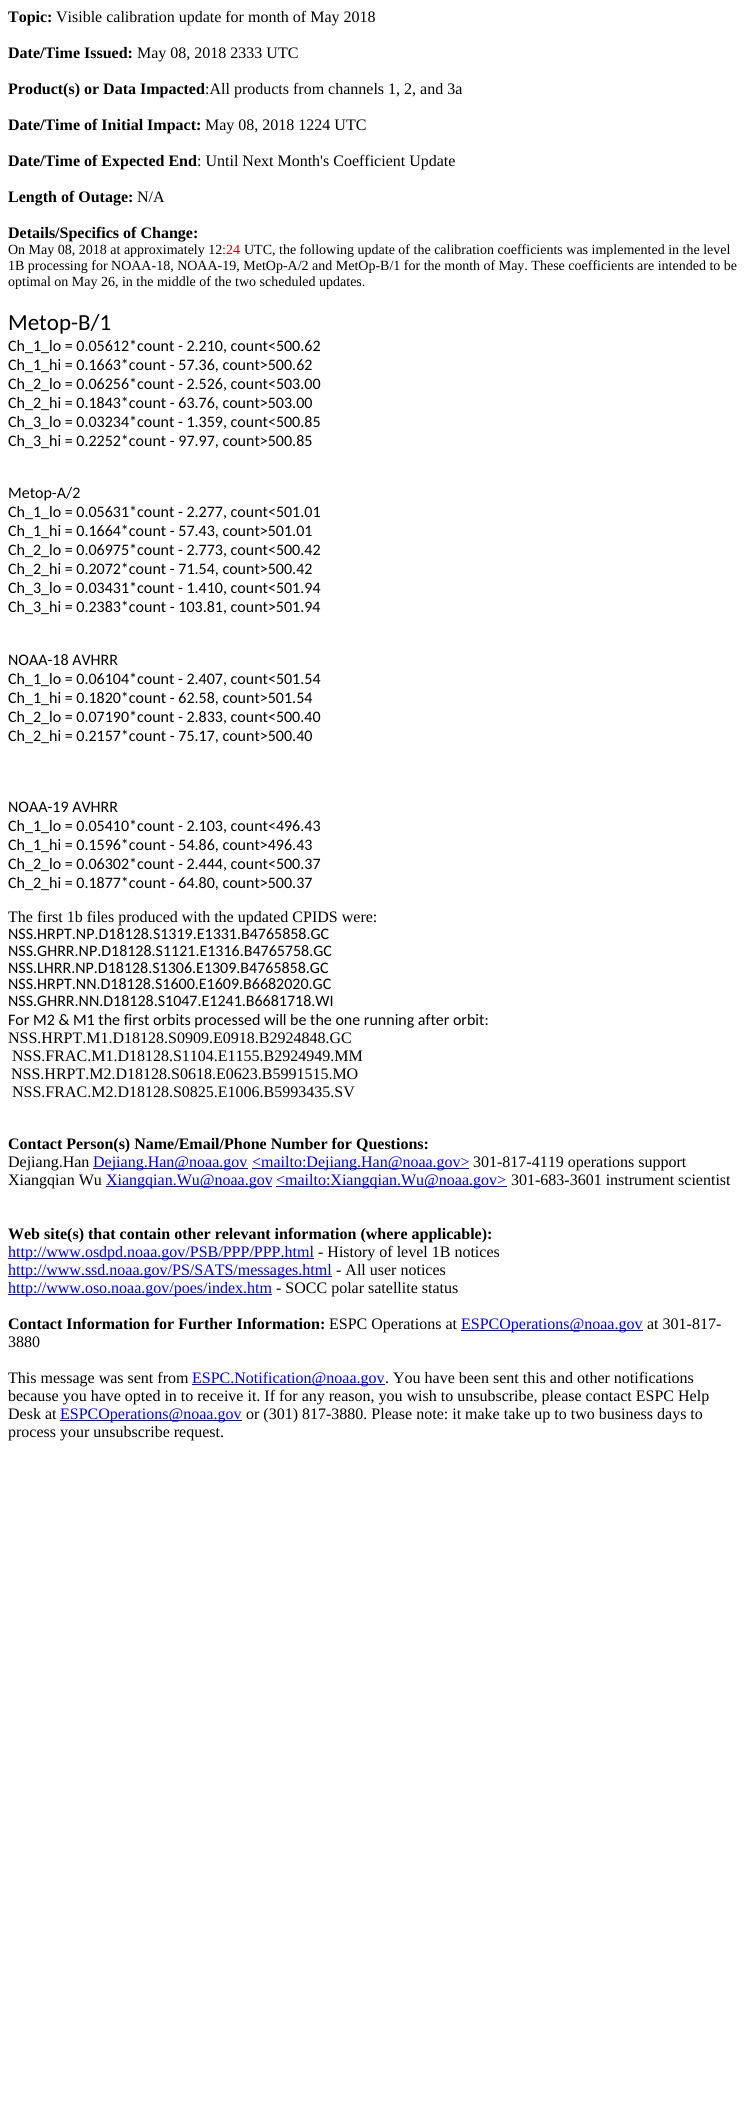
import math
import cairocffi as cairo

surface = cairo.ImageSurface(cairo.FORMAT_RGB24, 747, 2106)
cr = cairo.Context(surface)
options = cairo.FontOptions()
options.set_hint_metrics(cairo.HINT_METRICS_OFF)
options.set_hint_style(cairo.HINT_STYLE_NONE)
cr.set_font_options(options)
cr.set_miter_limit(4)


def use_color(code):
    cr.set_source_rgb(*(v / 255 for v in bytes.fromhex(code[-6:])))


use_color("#ffffff")
cr.paint()
cr.select_font_face("Liberation Serif", cairo.FONT_SLANT_NORMAL, cairo.FONT_WEIGHT_BOLD)
cr.set_font_size(16)
use_color("#000000")
cr.move_to(8, 22)
cr.show_text("Topic:")
cr.select_font_face("Liberation Serif")
cr.move_to(56, 22)
cr.show_text("Visible calibration update for month of May 2018")
cr.select_font_face("Liberation Serif", cairo.FONT_SLANT_NORMAL, cairo.FONT_WEIGHT_BOLD)
cr.move_to(8, 58)
cr.show_text("Date/Time Issued:")
cr.select_font_face("Liberation Serif")
cr.move_to(137, 58)
cr.show_text("May 08, 2018 2333 UTC")
cr.select_font_face("Liberation Serif", cairo.FONT_SLANT_NORMAL, cairo.FONT_WEIGHT_BOLD)
cr.move_to(8, 94)
cr.show_text("Product(s) or Data Impacted")
cr.select_font_face("Liberation Serif")
cr.move_to(205, 94)
cr.show_text(":All products from channels 1, 2, and 3a")
cr.select_font_face("Liberation Serif", cairo.FONT_SLANT_NORMAL, cairo.FONT_WEIGHT_BOLD)
cr.move_to(8, 130)
cr.show_text("Date/Time of Initial Impact:")
cr.select_font_face("Liberation Serif")
cr.move_to(205, 130)
cr.show_text("May 08, 2018 1224 UTC")
cr.select_font_face("Liberation Serif", cairo.FONT_SLANT_NORMAL, cairo.FONT_WEIGHT_BOLD)
cr.move_to(8, 166)
cr.show_text("Date/Time of Expected End")
cr.select_font_face("Liberation Serif")
cr.move_to(197, 166)
cr.show_text(": Until Next Month's Coefficient Update")
cr.select_font_face("Liberation Serif", cairo.FONT_SLANT_NORMAL, cairo.FONT_WEIGHT_BOLD)
cr.move_to(8, 202)
cr.show_text("Length of Outage:")
cr.select_font_face("Liberation Serif")
cr.move_to(137, 202)
cr.show_text("N/A")
cr.select_font_face("Liberation Serif", cairo.FONT_SLANT_NORMAL, cairo.FONT_WEIGHT_BOLD)
cr.move_to(8, 238)
cr.show_text("Details/Specifics of Change:")
cr.select_font_face("Liberation Serif")
cr.set_font_size(14)
cr.move_to(8, 254)
cr.show_text("On May 08, 2018 at approximately 12")
use_color("#c00000")
cr.move_to(222, 254)
cr.show_text(":24")
use_color("#000000")
cr.move_to(244, 254)
cr.show_text("UTC, the following update of the calibration coefficients was implemented in the level")
cr.move_to(8, 270)
cr.show_text("1B processing for NOAA-18, NOAA-19, MetOp-A/2 and MetOp-B/1 for the month of May. These coefficients are intended to be")
cr.move_to(8, 286)
cr.show_text("optimal on May 26, in the middle of the two scheduled updates.")
cr.select_font_face("Carlito")
cr.set_font_size(23)
cr.move_to(8, 330)
cr.show_text("Metop-B/1")
cr.set_font_size(16)
cr.move_to(8, 351)
cr.show_text("Ch_1_lo = 0.05612*count - 2.210, count<500.62")
cr.move_to(8, 370)
cr.show_text("Ch_1_hi = 0.1663*count - 57.36, count>500.62")
cr.move_to(8, 389)
cr.show_text("Ch_2_lo = 0.06256*count - 2.526, count<503.00")
cr.move_to(8, 408)
cr.show_text("Ch_2_hi = 0.1843*count - 63.76, count>503.00")
cr.move_to(8, 427)
cr.show_text("Ch_3_lo = 0.03234*count - 1.359, count<500.85")
cr.move_to(8, 446)
cr.show_text("Ch_3_hi = 0.2252*count - 97.97, count>500.85")
cr.move_to(8, 498)
cr.show_text("Metop-A/2")
cr.move_to(8, 517)
cr.show_text("Ch_1_lo = 0.05631*count - 2.277, count<501.01")
cr.move_to(8, 536)
cr.show_text("Ch_1_hi = 0.1664*count - 57.43, count>501.01")
cr.move_to(8, 555)
cr.show_text("Ch_2_lo = 0.06975*count - 2.773, count<500.42")
cr.move_to(8, 574)
cr.show_text("Ch_2_hi = 0.2072*count - 71.54, count>500.42")
cr.move_to(8, 593)
cr.show_text("Ch_3_lo = 0.03431*count - 1.410, count<501.94")
cr.move_to(8, 612)
cr.show_text("Ch_3_hi = 0.2383*count - 103.81, count>501.94")
cr.move_to(8, 665)
cr.show_text("NOAA-18 AVHRR")
cr.move_to(8, 684)
cr.show_text("Ch_1_lo = 0.06104*count - 2.407, count<501.54")
cr.move_to(8, 703)
cr.show_text("Ch_1_hi = 0.1820*count - 62.58, count>501.54")
cr.move_to(8, 722)
cr.show_text("Ch_2_lo = 0.07190*count - 2.833, count<500.40")
cr.move_to(8, 741)
cr.show_text("Ch_2_hi = 0.2157*count - 75.17, count>500.40")
cr.move_to(8, 812)
cr.show_text("NOAA-19 AVHRR")
cr.move_to(8, 831)
cr.show_text("Ch_1_lo = 0.05410*count - 2.103, count<496.43")
cr.move_to(8, 850)
cr.show_text("Ch_1_hi = 0.1596*count - 54.86, count>496.43")
cr.move_to(8, 869)
cr.show_text("Ch_2_lo = 0.06302*count - 2.444, count<500.37")
cr.move_to(8, 888)
cr.show_text("Ch_2_hi = 0.1877*count - 64.80, count>500.37")
cr.select_font_face("Liberation Serif")
cr.move_to(8, 922)
cr.show_text("The first 1b files produced with the updated CPIDS were:")
cr.select_font_face("Carlito")
cr.move_to(8, 939)
cr.show_text("NSS.HRPT.NP.D18128.S1319.E1331.B4765858.GC")
cr.move_to(8, 956)
cr.show_text("NSS.GHRR.NP.D18128.S1121.E1316.B4765758.GC")
cr.move_to(8, 973)
cr.show_text("NSS.LHRR.NP.D18128.S1306.E1309.B4765858.GC")
cr.move_to(8, 989)
cr.show_text("NSS.HRPT.NN.D18128.S1600.E1609.B6682020.GC")
cr.move_to(8, 1006)
cr.show_text("NSS.GHRR.NN.D18128.S1047.E1241.B6681718.WI")
cr.move_to(8, 1025)
cr.show_text("For M2 & M1 the first orbits processed will be the one running after orbit:")
cr.select_font_face("Liberation Serif")
cr.move_to(8, 1043)
cr.show_text("NSS.HRPT.M1.D18128.S0909.E0918.B2924848.GC")
cr.move_to(12, 1061)
cr.show_text("NSS.FRAC.M1.D18128.S1104.E1155.B2924949.MM")
cr.move_to(11, 1079)
cr.show_text("NSS.HRPT.M2.D18128.S0618.E0623.B5991515.MO")
cr.move_to(12, 1097)
cr.show_text("NSS.FRAC.M2.D18128.S0825.E1006.B5993435.SV")
cr.select_font_face("Liberation Serif", cairo.FONT_SLANT_NORMAL, cairo.FONT_WEIGHT_BOLD)
cr.move_to(8, 1149)
cr.show_text("Contact Person(s) Name/Email/Phone Number for Questions:")
cr.select_font_face("Liberation Serif")
cr.move_to(8, 1167)
cr.show_text("Dejiang.Han")
use_color("#0000ee")
cr.rectangle(93, 1168, 155, 1)
cr.fill()
cr.move_to(93, 1167)
cr.show_text("Dejiang.Han@noaa.gov")
cr.rectangle(252, 1168, 217, 1)
cr.fill()
cr.move_to(252, 1167)
cr.show_text("<mailto:Dejiang.Han@noaa.gov>")
use_color("#000000")
cr.move_to(473, 1167)
cr.show_text("301-817-4119 operations support")
cr.move_to(8, 1185)
cr.show_text("Xiangqian Wu")
use_color("#0000ee")
cr.rectangle(106, 1186, 166, 1)
cr.fill()
cr.move_to(106, 1185)
cr.show_text("Xiangqian.Wu@noaa.gov")
cr.rectangle(276, 1186, 231, 1)
cr.fill()
cr.move_to(276, 1185)
cr.show_text("<mailto:Xiangqian.Wu@noaa.gov>")
use_color("#000000")
cr.move_to(511, 1185)
cr.show_text("301-683-3601 instrument scientist")
cr.select_font_face("Liberation Serif", cairo.FONT_SLANT_NORMAL, cairo.FONT_WEIGHT_BOLD)
cr.move_to(8, 1239)
cr.show_text("Web site(s) that contain other relevant information (where applicable):")
use_color("#0000ee")
cr.rectangle(8, 1258, 306, 1)
cr.fill()
cr.select_font_face("Liberation Serif")
cr.move_to(8, 1257)
cr.show_text("http://www.osdpd.noaa.gov/PSB/PPP/PPP.html")
use_color("#000000")
cr.move_to(318, 1257)
cr.show_text("- History of level 1B notices")
use_color("#0000ee")
cr.rectangle(8, 1276, 324, 1)
cr.fill()
cr.move_to(8, 1275)
cr.show_text("http://www.ssd.noaa.gov/PS/SATS/messages.html")
use_color("#000000")
cr.move_to(336, 1275)
cr.show_text("- All user notices")
use_color("#0000ee")
cr.rectangle(8, 1294, 264, 1)
cr.fill()
cr.move_to(8, 1293)
cr.show_text("http://www.oso.noaa.gov/poes/index.htm")
use_color("#000000")
cr.move_to(276, 1293)
cr.show_text("- SOCC polar satellite status")
cr.select_font_face("Liberation Serif", cairo.FONT_SLANT_NORMAL, cairo.FONT_WEIGHT_BOLD)
cr.move_to(8, 1329)
cr.show_text("Contact Information for Further Information:")
cr.select_font_face("Liberation Serif")
cr.move_to(329, 1329)
cr.show_text("ESPC Operations at")
use_color("#0000ee")
cr.rectangle(461, 1330, 182, 1)
cr.fill()
cr.move_to(461, 1329)
cr.show_text("ESPCOperations@noaa.gov")
use_color("#000000")
cr.move_to(647, 1329)
cr.show_text("at 301-817-")
cr.move_to(8, 1347)
cr.show_text("3880")
cr.move_to(8, 1383)
cr.show_text("This message was sent from")
use_color("#0000ee")
cr.rectangle(192, 1384, 193, 1)
cr.fill()
cr.move_to(192, 1383)
cr.show_text("ESPC.Notification@noaa.gov")
use_color("#000000")
cr.move_to(385, 1383)
cr.show_text(". You have been sent this and other notifications")
cr.move_to(8, 1401)
cr.show_text("because you have opted in to receive it. If for any reason, you wish to unsubscribe, please contact ESPC Help")
cr.move_to(8, 1419)
cr.show_text("Desk at")
use_color("#0000ee")
cr.rectangle(60, 1420, 182, 1)
cr.fill()
cr.move_to(60, 1419)
cr.show_text("ESPCOperations@noaa.gov")
use_color("#000000")
cr.move_to(246, 1419)
cr.show_text("or (301) 817-3880. Please note: it make take up to two business days to")
cr.move_to(8, 1437)
cr.show_text("process your unsubscribe request.")
surface.write_to_png("result.png")
